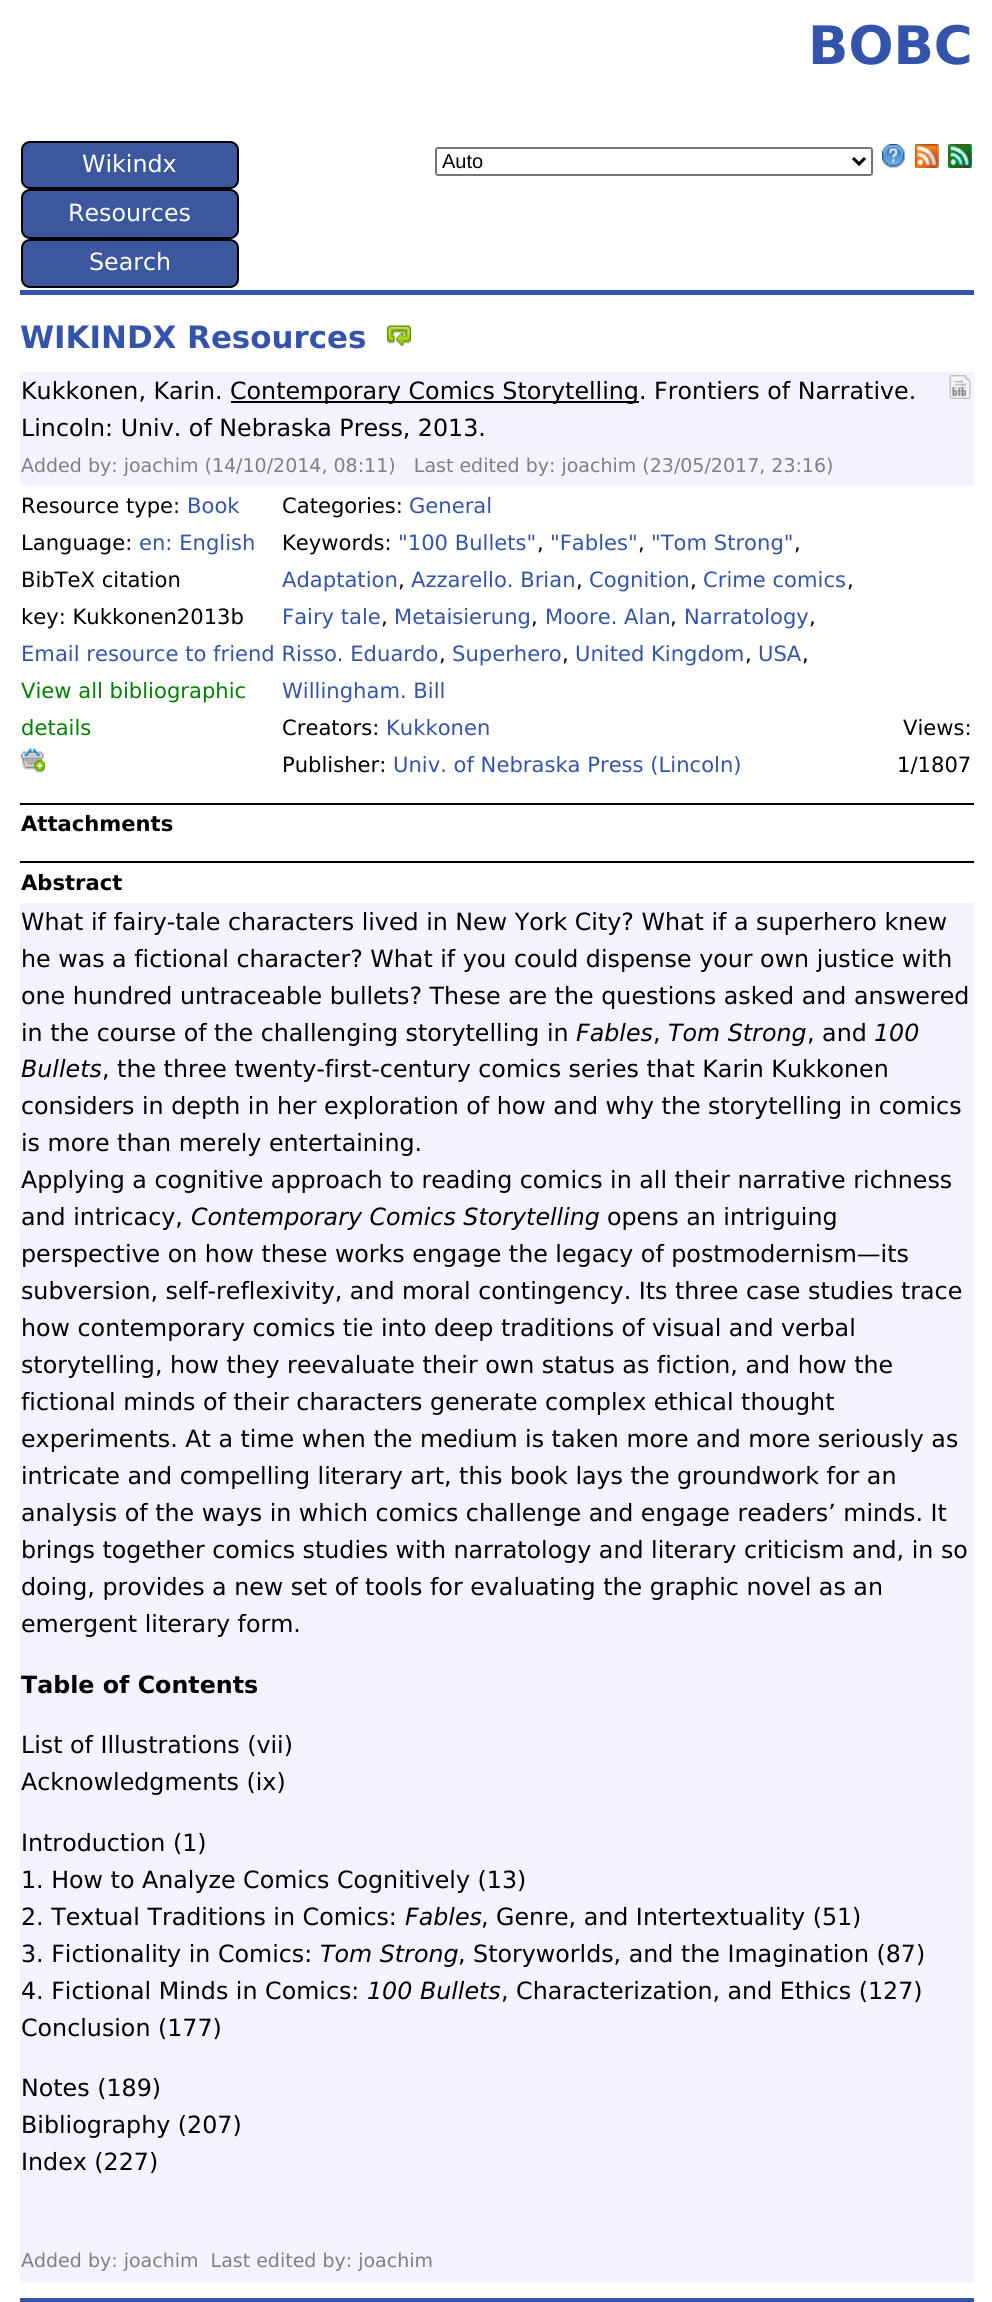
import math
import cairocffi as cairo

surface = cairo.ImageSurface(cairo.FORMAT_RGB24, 992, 2302)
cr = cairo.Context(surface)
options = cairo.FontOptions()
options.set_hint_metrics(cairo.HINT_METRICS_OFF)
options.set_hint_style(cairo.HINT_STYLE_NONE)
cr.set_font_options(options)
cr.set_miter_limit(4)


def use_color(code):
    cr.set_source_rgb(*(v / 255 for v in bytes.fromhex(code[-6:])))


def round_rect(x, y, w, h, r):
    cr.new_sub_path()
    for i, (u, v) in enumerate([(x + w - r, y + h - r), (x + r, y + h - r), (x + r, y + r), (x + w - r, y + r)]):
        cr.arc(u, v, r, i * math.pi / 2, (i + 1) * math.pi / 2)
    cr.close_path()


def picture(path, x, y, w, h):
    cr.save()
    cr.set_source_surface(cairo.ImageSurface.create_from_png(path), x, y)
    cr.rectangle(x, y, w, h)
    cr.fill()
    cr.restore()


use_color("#ffffff")
cr.paint()
cr.select_font_face("DejaVu Sans", cairo.FONT_SLANT_NORMAL, cairo.FONT_WEIGHT_BOLD)
cr.set_font_size(53)
use_color("#3354aa")
cr.move_to(808, 64)
cr.show_text("BOBC")
cr.rectangle(20, 290, 954, 5)
cr.fill()
use_color("#3c579d")
round_rect(22, 142, 216, 46, 8)
cr.fill_preserve()
use_color("#000000")
cr.stroke()
cr.select_font_face("DejaVu Sans")
cr.set_font_size(23.75)
use_color("#ffffff")
cr.move_to(82, 172)
cr.show_text("Wikindx")
use_color("#3c579d")
round_rect(22, 190, 216, 48, 8)
cr.fill_preserve()
use_color("#000000")
cr.stroke()
use_color("#ffffff")
cr.move_to(68, 221)
cr.show_text("Resources")
use_color("#3c579d")
round_rect(22, 240, 216, 47, 8)
cr.fill_preserve()
use_color("#000000")
cr.stroke()
use_color("#ffffff")
cr.move_to(89, 270)
cr.show_text("Search")
round_rect(436, 148, 436, 27, 2)
use_color("#767676")
cr.stroke()
cr.new_path()
cr.move_to(853, 158)
cr.line_to(859, 164)
cr.line_to(865, 158)
use_color("#000000")
cr.set_line_width(3)
cr.stroke()
cr.select_font_face("Liberation Sans")
cr.set_font_size(20)
cr.move_to(442, 168)
cr.show_text("Auto")
picture("img1.png", 882, 144, 23, 24)
picture("img2.png", 915, 144, 24, 24)
picture("img3.png", 948, 144, 24, 24)
cr.select_font_face("DejaVu Sans", cairo.FONT_SLANT_NORMAL, cairo.FONT_WEIGHT_BOLD)
cr.set_font_size(30.9)
use_color("#3354aa")
cr.move_to(20, 348)
cr.show_text("WIKINDX Resources")
picture("img4.png", 387, 325, 24, 22)
use_color("#f2f3ff")
cr.rectangle(20, 372, 954, 114)
cr.fill()
cr.select_font_face("DejaVu Sans")
cr.set_font_size(23.75)
use_color("#000000")
cr.move_to(21, 399)
cr.show_text("Kukkonen, Karin.")
cr.rectangle(231, 401, 408, 2)
cr.fill()
cr.move_to(230, 399)
cr.show_text("Contemporary Comics Storytelling. Frontiers of Narrative.")
cr.move_to(21, 436)
cr.show_text("Lincoln: Univ. of Nebraska Press, 2013.")
cr.set_font_size(19)
use_color("#808080")
cr.move_to(21, 472)
cr.show_text("Added by: joachim (14/10/2014, 08:11)   Last edited by: joachim (23/05/2017, 23:16)")
picture("img5.png", 949, 375, 22, 24)
cr.set_font_size(21.1)
use_color("#000000")
cr.move_to(21, 513)
cr.show_text("Resource type:")
use_color("#3354aa")
cr.move_to(187, 513)
cr.show_text("Book")
use_color("#000000")
cr.move_to(21, 550)
cr.show_text("Language:")
use_color("#3354aa")
cr.move_to(139, 550)
cr.show_text("en: English")
use_color("#000000")
cr.move_to(21, 587)
cr.show_text("BibTeX citation")
cr.move_to(21, 624)
cr.show_text("key: Kukkonen2013b")
use_color("#3354aa")
cr.move_to(21, 661)
cr.show_text("Email resource to friend Risso. Eduardo")
use_color("#008000")
cr.move_to(21, 698)
cr.show_text("View all bibliographic")
cr.move_to(21, 735)
cr.show_text("details")
picture("img6.png", 21, 748, 24, 25)
use_color("#000000")
cr.move_to(282, 513)
cr.show_text("Categories:")
use_color("#3354aa")
cr.move_to(409, 513)
cr.show_text("General")
use_color("#000000")
cr.move_to(282, 550)
cr.show_text("Keywords:")
use_color("#3354aa")
cr.move_to(398, 550)
cr.show_text("\"100 Bullets\"")
use_color("#000000")
cr.move_to(537, 550)
cr.show_text(",")
use_color("#3354aa")
cr.move_to(550, 550)
cr.show_text("\"Fables\"")
use_color("#000000")
cr.move_to(638, 550)
cr.show_text(",")
use_color("#3354aa")
cr.move_to(651, 550)
cr.show_text("\"Tom Strong\"")
use_color("#000000")
cr.move_to(794, 550)
cr.show_text(",")
use_color("#3354aa")
cr.move_to(282, 587)
cr.show_text("Adaptation")
use_color("#000000")
cr.move_to(398, 587)
cr.show_text(",")
use_color("#3354aa")
cr.move_to(411, 587)
cr.show_text("Azzarello. Brian")
use_color("#000000")
cr.move_to(576, 587)
cr.show_text(",")
use_color("#3354aa")
cr.move_to(589, 587)
cr.show_text("Cognition")
use_color("#000000")
cr.move_to(690, 587)
cr.show_text(",")
use_color("#3354aa")
cr.move_to(703, 587)
cr.show_text("Crime comics")
use_color("#000000")
cr.move_to(847, 587)
cr.show_text(",")
use_color("#3354aa")
cr.move_to(282, 624)
cr.show_text("Fairy tale")
use_color("#000000")
cr.move_to(381, 624)
cr.show_text(",")
use_color("#3354aa")
cr.move_to(394, 624)
cr.show_text("Metaisierung")
use_color("#000000")
cr.move_to(531, 624)
cr.show_text(",")
use_color("#3354aa")
cr.move_to(545, 624)
cr.show_text("Moore. Alan")
use_color("#000000")
cr.move_to(670, 624)
cr.show_text(",")
use_color("#3354aa")
cr.move_to(684, 624)
cr.show_text("Narratology")
use_color("#000000")
cr.move_to(809, 624)
cr.show_text(",")
cr.move_to(439, 661)
cr.show_text(",")
use_color("#3354aa")
cr.move_to(452, 661)
cr.show_text("Superhero")
use_color("#000000")
cr.move_to(562, 661)
cr.show_text(",")
use_color("#3354aa")
cr.move_to(575, 661)
cr.show_text("United Kingdom")
use_color("#000000")
cr.move_to(745, 661)
cr.show_text(",")
use_color("#3354aa")
cr.move_to(758, 661)
cr.show_text("USA")
use_color("#000000")
cr.move_to(802, 661)
cr.show_text(",")
use_color("#3354aa")
cr.move_to(282, 698)
cr.show_text("Willingham. Bill")
use_color("#000000")
cr.move_to(282, 735)
cr.show_text("Creators:")
use_color("#3354aa")
cr.move_to(386, 735)
cr.show_text("Kukkonen")
use_color("#000000")
cr.move_to(282, 772)
cr.show_text("Publisher:")
use_color("#3354aa")
cr.move_to(393, 772)
cr.show_text("Univ. of Nebraska Press (Lincoln)")
use_color("#000000")
cr.move_to(903, 735)
cr.show_text("Views:")
cr.move_to(897, 772)
cr.show_text("1/1807")
cr.rectangle(20, 803, 954, 2)
cr.fill()
cr.select_font_face("DejaVu Sans", cairo.FONT_SLANT_NORMAL, cairo.FONT_WEIGHT_BOLD)
cr.move_to(21, 831)
cr.show_text("Attachments")
cr.rectangle(20, 861, 954, 2)
cr.fill()
cr.move_to(21, 890)
cr.show_text("Abstract")
use_color("#f2f3ff")
cr.rectangle(20, 903, 954, 1379)
cr.fill()
cr.select_font_face("DejaVu Sans")
cr.set_font_size(23.75)
use_color("#000000")
cr.move_to(21, 930)
cr.show_text("What if fairy-tale characters lived in New York City? What if a superhero knew")
cr.move_to(21, 967)
cr.show_text("he was a fictional character? What if you could dispense your own justice with")
cr.move_to(21, 1004)
cr.show_text("one hundred untraceable bullets? These are the questions asked and answered")
cr.move_to(21, 1041)
cr.show_text("in the course of the challenging storytelling in")
cr.select_font_face("DejaVu Sans", cairo.FONT_SLANT_ITALIC)
cr.move_to(576, 1041)
cr.show_text("Fables")
cr.select_font_face("DejaVu Sans")
cr.move_to(653, 1041)
cr.show_text(",")
cr.select_font_face("DejaVu Sans", cairo.FONT_SLANT_ITALIC)
cr.move_to(668, 1041)
cr.show_text("Tom Strong")
cr.select_font_face("DejaVu Sans")
cr.move_to(807, 1041)
cr.show_text(", and")
cr.select_font_face("DejaVu Sans", cairo.FONT_SLANT_ITALIC)
cr.move_to(874, 1041)
cr.show_text("100")
cr.move_to(21, 1077)
cr.show_text("Bullets")
cr.select_font_face("DejaVu Sans")
cr.move_to(102, 1077)
cr.show_text(", the three twenty-first-century comics series that Karin Kukkonen")
cr.move_to(21, 1114)
cr.show_text("considers in depth in her exploration of how and why the storytelling in comics")
cr.move_to(21, 1151)
cr.show_text("is more than merely entertaining.")
cr.move_to(21, 1188)
cr.show_text("Applying a cognitive approach to reading comics in all their narrative richness")
cr.move_to(21, 1225)
cr.show_text("and intricacy,")
cr.select_font_face("DejaVu Sans", cairo.FONT_SLANT_ITALIC)
cr.move_to(191, 1225)
cr.show_text("Contemporary Comics Storytelling")
cr.select_font_face("DejaVu Sans")
cr.move_to(607, 1225)
cr.show_text("opens an intriguing")
cr.move_to(21, 1262)
cr.show_text("perspective on how these works engage the legacy of postmodernism—its")
cr.move_to(21, 1299)
cr.show_text("subversion, self-reflexivity, and moral contingency. Its three case studies trace")
cr.move_to(21, 1336)
cr.show_text("how contemporary comics tie into deep traditions of visual and verbal")
cr.move_to(21, 1373)
cr.show_text("storytelling, how they reevaluate their own status as fiction, and how the")
cr.move_to(21, 1410)
cr.show_text("fictional minds of their characters generate complex ethical thought")
cr.move_to(21, 1447)
cr.show_text("experiments. At a time when the medium is taken more and more seriously as")
cr.move_to(21, 1484)
cr.show_text("intricate and compelling literary art, this book lays the groundwork for an")
cr.move_to(21, 1521)
cr.show_text("analysis of the ways in which comics challenge and engage readers’ minds. It")
cr.move_to(21, 1558)
cr.show_text("brings together comics studies with narratology and literary criticism and, in so")
cr.move_to(21, 1595)
cr.show_text("doing, provides a new set of tools for evaluating the graphic novel as an")
cr.move_to(21, 1632)
cr.show_text("emergent literary form.")
cr.select_font_face("DejaVu Sans", cairo.FONT_SLANT_NORMAL, cairo.FONT_WEIGHT_BOLD)
cr.move_to(21, 1693)
cr.show_text("Table of Contents")
cr.select_font_face("DejaVu Sans")
cr.move_to(21, 1753)
cr.show_text("List of Illustrations (vii)")
cr.move_to(21, 1790)
cr.show_text("Acknowledgments (ix)")
cr.move_to(21, 1851)
cr.show_text("Introduction (1)")
cr.move_to(21, 1888)
cr.show_text("1. How to Analyze Comics Cognitively (13)")
cr.move_to(21, 1925)
cr.show_text("2. Textual Traditions in Comics:")
cr.select_font_face("DejaVu Sans", cairo.FONT_SLANT_ITALIC)
cr.move_to(405, 1925)
cr.show_text("Fables")
cr.select_font_face("DejaVu Sans")
cr.move_to(481, 1925)
cr.show_text(", Genre, and Intertextuality (51)")
cr.move_to(21, 1962)
cr.show_text("3. Fictionality in Comics:")
cr.select_font_face("DejaVu Sans", cairo.FONT_SLANT_ITALIC)
cr.move_to(320, 1962)
cr.show_text("Tom Strong")
cr.select_font_face("DejaVu Sans")
cr.move_to(458, 1962)
cr.show_text(", Storyworlds, and the Imagination (87)")
cr.move_to(21, 1999)
cr.show_text("4. Fictional Minds in Comics:")
cr.select_font_face("DejaVu Sans", cairo.FONT_SLANT_ITALIC)
cr.move_to(367, 1999)
cr.show_text("100 Bullets")
cr.select_font_face("DejaVu Sans")
cr.move_to(501, 1999)
cr.show_text(", Characterization, and Ethics (127)")
cr.move_to(21, 2036)
cr.show_text("Conclusion (177)")
cr.move_to(21, 2096)
cr.show_text("Notes (189)")
cr.move_to(21, 2133)
cr.show_text("Bibliography (207)")
cr.move_to(21, 2170)
cr.show_text("Index (227)")
cr.set_font_size(19)
use_color("#808080")
cr.move_to(21, 2267)
cr.show_text("Added by: joachim  Last edited by: joachim")
use_color("#3354aa")
cr.rectangle(20, 2298, 954, 4)
cr.fill()
surface.write_to_png("result.png")
